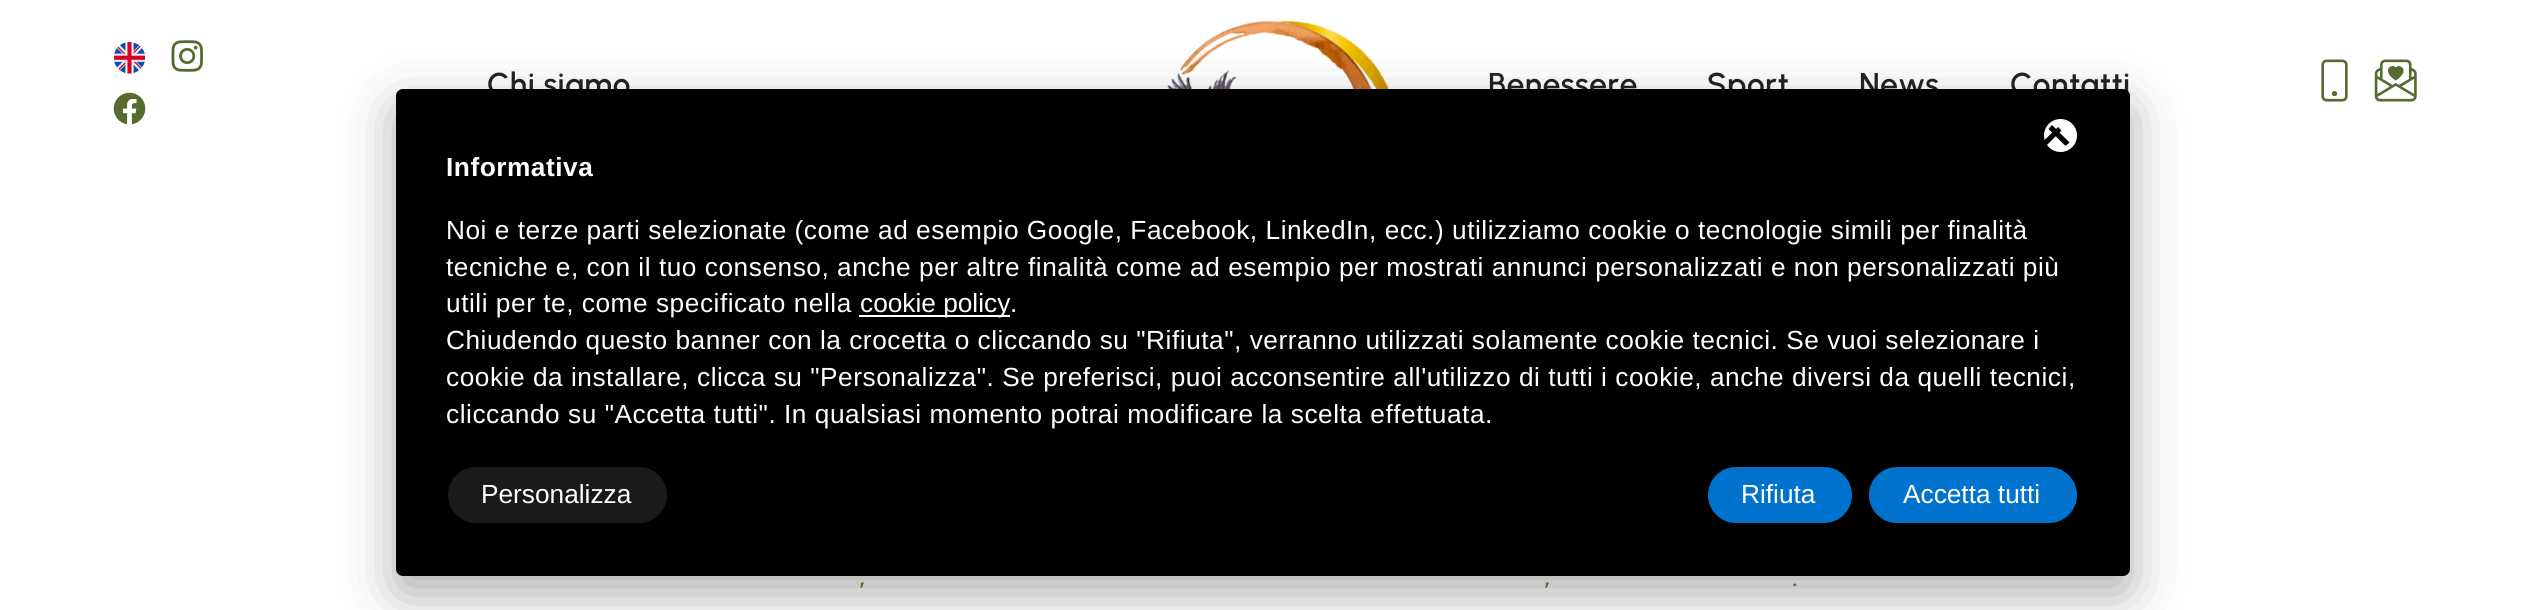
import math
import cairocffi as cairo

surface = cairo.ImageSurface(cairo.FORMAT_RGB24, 2521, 610)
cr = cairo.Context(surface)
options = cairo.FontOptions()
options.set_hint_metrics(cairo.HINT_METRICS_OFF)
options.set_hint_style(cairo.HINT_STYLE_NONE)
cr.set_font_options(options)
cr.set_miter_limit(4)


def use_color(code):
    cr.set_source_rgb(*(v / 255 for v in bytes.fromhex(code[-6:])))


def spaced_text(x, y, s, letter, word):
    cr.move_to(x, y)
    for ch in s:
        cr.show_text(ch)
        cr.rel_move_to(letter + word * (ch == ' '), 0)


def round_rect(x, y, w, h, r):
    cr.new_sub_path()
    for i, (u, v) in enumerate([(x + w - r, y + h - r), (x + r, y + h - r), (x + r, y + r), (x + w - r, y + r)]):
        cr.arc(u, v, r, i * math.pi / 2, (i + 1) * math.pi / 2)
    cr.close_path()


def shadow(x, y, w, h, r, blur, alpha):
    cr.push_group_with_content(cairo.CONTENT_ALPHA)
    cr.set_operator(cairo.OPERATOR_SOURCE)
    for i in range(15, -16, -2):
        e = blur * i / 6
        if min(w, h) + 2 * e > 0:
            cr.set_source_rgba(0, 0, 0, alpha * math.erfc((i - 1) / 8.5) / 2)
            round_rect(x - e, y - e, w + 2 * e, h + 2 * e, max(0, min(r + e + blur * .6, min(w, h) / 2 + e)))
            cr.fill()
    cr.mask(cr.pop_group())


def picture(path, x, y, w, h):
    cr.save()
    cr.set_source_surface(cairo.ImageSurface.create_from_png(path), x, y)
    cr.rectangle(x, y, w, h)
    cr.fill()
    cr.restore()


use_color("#ffffff")
cr.paint()
picture("img1.png", 114, 42, 31, 32)
picture("img2.png", 171, 40, 32, 32)
picture("img3.png", 113, 92, 33, 33)
picture("img4.png", 1126, 21, 272, 68)
picture("img5.png", 2321, 59, 27, 43)
picture("img6.png", 2374, 59, 43, 43)
cr.select_font_face("Urbanist SemiBold")
cr.set_font_size(31.5)
use_color("#232323")
spaced_text(487, 95, "Chi siamo", 0.53, 0)
spaced_text(1488, 95, "Benessere", 0.53, 0)
spaced_text(1707, 95, "Sport", 0.53, 0)
spaced_text(1859, 95, "News", 0.53, 0)
spaced_text(2010, 95, "Contatti", 0.53, 0)
use_color("#000000")
shadow(396, 107, 1734, 486, 7, 26, 0.33)
use_color("#000000")
round_rect(396, 89, 1734, 487, 7)
cr.fill()
use_color("#ffffff")
cr.arc(2060.5, 135.5, 16.5, 0, 2 * math.pi)
cr.fill()
use_color("#000000")
cr.new_path()
cr.move_to(2048.5, 129)
cr.line_to(2052, 125)
cr.line_to(2069.5, 142.5)
cr.line_to(2065.5, 146)
cr.close_path()
cr.fill()
cr.new_path()
cr.move_to(2058, 127)
cr.line_to(2061.5, 130.5)
cr.line_to(2046.5, 145.5)
cr.line_to(2043, 141.5)
cr.close_path()
cr.fill()
cr.select_font_face("Liberation Sans", cairo.FONT_SLANT_NORMAL, cairo.FONT_WEIGHT_BOLD)
cr.set_font_size(26.25)
use_color("#ffffff")
spaced_text(446, 176, "Informativa", 0.53, 0)
cr.select_font_face("Liberation Sans")
spaced_text(446, 239, "Noi e terze parti selezionate (come ad esempio Google, Facebook, LinkedIn, ecc.) utilizziamo cookie o tecnologie simili per finalità", 0.53, 0)
spaced_text(446, 276, "tecniche e, con il tuo consenso, anche per altre finalità come ad esempio per mostrati annunci personalizzati e non personalizzati più", 0.53, 0)
spaced_text(446, 312, "utili per te, come specificato nella", 0.53, 0)
cr.rectangle(859, 315, 151, 2)
cr.fill()
cr.move_to(860, 312)
cr.show_text("cookie policy")
spaced_text(1010, 312, ".", 0.53, 0)
spaced_text(446, 349, "Chiudendo questo banner con la crocetta o cliccando su \"Rifiuta\", verranno utilizzati solamente cookie tecnici. Se vuoi selezionare i", 0.53, 0)
spaced_text(446, 386, "cookie da installare, clicca su \"Personalizza\". Se preferisci, puoi acconsentire all'utilizzo di tutti i cookie, anche diversi da quelli tecnici,", 0.53, 0)
spaced_text(446, 423, "cliccando su \"Accetta tutti\". In qualsiasi momento potrai modificare la scelta effettuata.", 0.53, 0)
use_color("#1a1a1a")
round_rect(448, 467, 219, 56, 28)
cr.fill()
use_color("#ffffff")
cr.move_to(481, 503)
cr.show_text("Personalizza")
use_color("#0073ce")
round_rect(1708, 467, 144, 56, 28)
cr.fill()
use_color("#ffffff")
cr.move_to(1741, 503)
cr.show_text("Rifiuta")
use_color("#0073ce")
round_rect(1869, 467, 208, 56, 28)
cr.fill()
use_color("#ffffff")
cr.move_to(1903, 503)
cr.show_text("Accetta tutti")
cr.select_font_face("Urbanist Medium")
cr.set_font_size(31.5)
use_color("#566b30")
spaced_text(859, 586, ",", 0.53, 0)
spaced_text(1544, 586, ",", 0.53, 0)
spaced_text(1792, 586, ".", 0.53, 0)
surface.write_to_png("result.png")
